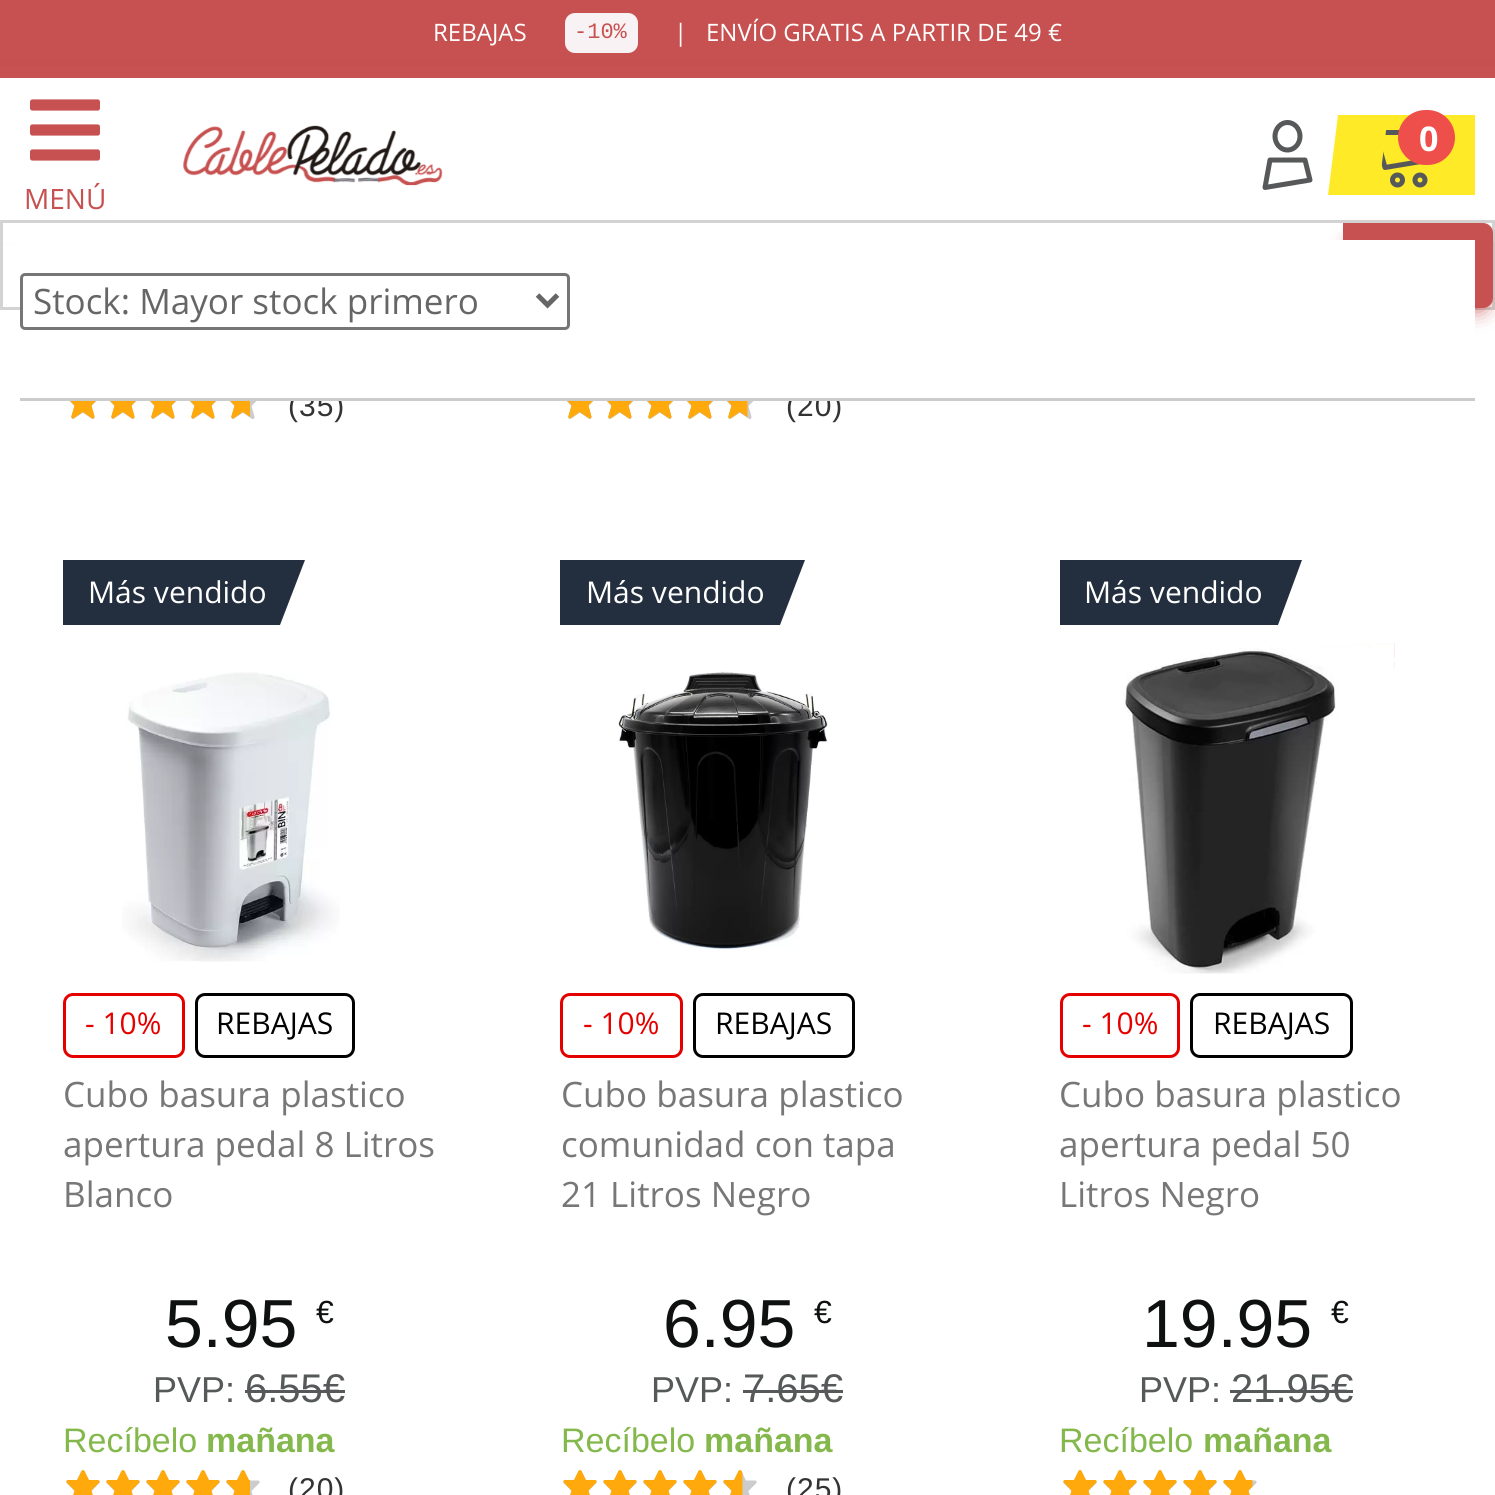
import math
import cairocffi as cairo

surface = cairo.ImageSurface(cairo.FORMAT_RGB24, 1495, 1495)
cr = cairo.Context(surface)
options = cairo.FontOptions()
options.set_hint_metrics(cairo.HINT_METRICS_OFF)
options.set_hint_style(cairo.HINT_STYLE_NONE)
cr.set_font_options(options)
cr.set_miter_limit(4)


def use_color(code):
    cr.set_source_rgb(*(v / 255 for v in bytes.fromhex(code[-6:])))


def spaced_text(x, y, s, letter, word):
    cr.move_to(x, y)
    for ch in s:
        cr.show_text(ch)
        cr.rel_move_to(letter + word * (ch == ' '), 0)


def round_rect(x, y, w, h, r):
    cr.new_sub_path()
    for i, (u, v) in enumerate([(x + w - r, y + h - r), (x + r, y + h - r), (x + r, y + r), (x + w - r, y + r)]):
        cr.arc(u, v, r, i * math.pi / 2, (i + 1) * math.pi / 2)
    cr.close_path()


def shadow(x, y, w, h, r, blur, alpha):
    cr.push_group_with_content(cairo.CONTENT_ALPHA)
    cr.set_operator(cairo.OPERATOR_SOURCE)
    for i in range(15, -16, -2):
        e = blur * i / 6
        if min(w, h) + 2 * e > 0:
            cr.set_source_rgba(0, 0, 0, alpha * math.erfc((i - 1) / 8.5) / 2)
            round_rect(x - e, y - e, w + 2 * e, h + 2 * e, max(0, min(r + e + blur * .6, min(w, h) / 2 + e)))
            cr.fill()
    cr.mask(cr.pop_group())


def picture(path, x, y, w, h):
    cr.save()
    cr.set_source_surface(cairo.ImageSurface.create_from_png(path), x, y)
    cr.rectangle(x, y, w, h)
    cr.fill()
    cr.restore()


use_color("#ffffff")
cr.paint()
use_color("#c75150")
cr.rectangle(0, 0, 1495, 65)
cr.fill()
cr.select_font_face("Open Sans")
cr.set_font_size(24)
use_color("#ffffff")
cr.move_to(433, 41)
cr.show_text("REBAJAS")
use_color("#000000")
shadow(0, 75, 1495, 155, 0, 7.5, 0.25)
use_color("#f9f2f4")
round_rect(565, 13, 73, 40, 10)
cr.fill()
cr.select_font_face("Liberation Mono")
cr.set_font_size(22)
use_color("#c75150")
cr.move_to(574, 38)
cr.show_text("-10%")
cr.select_font_face("Open Sans")
cr.set_font_size(24)
use_color("#ffffff")
cr.move_to(674, 41)
cr.show_text("|")
cr.move_to(706, 41)
cr.show_text("ENVÍO GRATIS A PARTIR DE 49 €")
cr.rectangle(0, 78, 1495, 142)
cr.fill()
use_color("#c75150")
cr.rectangle(0, 65, 1495, 13)
cr.fill()
picture("img1.png", 1262, 120, 51, 70)
use_color("#ffea28")
cr.rectangle(1378, 115, 97, 80)
cr.fill()
picture("img2.png", 1381, 130, 47, 58)
cr.new_path()
cr.move_to(1338, 115)
cr.line_to(1388, 115)
cr.line_to(1378, 195)
cr.line_to(1328, 195)
cr.close_path()
cr.fill()
use_color("#ef4f4a")
round_rect(1398, 110, 57, 55, 27.5)
cr.fill()
cr.select_font_face("Open Sans", cairo.FONT_SLANT_NORMAL, cairo.FONT_WEIGHT_BOLD)
cr.set_font_size(34)
use_color("#ffffff")
cr.move_to(1419, 151)
cr.show_text("0")
picture("img3.png", 183, 125, 260, 61)
picture("img4.png", 30, 99, 70, 62)
cr.select_font_face("Open Sans")
cr.set_font_size(28)
use_color("#c75150")
cr.move_to(24, 209)
cr.show_text("MENÚ")
use_color("#ffffff")
cr.rectangle(3, 223, 1489, 20)
cr.fill()
cr.rectangle(1.5, 221.5, 1492, 87)
use_color("#d3d3d3")
cr.set_line_width(3)
cr.stroke()
use_color("#c75150")
shadow(1353, 243, 130, 65, 0, 11, 1)
use_color("#c75150")
cr.new_path()
cr.move_to(1343, 223)
cr.line_to(1483, 223)
cr.curve_to(1488.5, 223, 1493, 227.5, 1493, 233)
cr.line_to(1493, 298)
cr.curve_to(1493, 303.5, 1488.5, 308, 1483, 308)
cr.line_to(1343, 308)
cr.close_path()
cr.fill()
cr.select_font_face("Liberation Sans")
cr.set_font_size(30)
use_color("#333333")
spaced_text(288, 416, "(35)", 1, 0)
spaced_text(786, 416, "(20)", 1, 0)
use_color("#ffffff")
cr.rectangle(20, 240, 1455, 158)
cr.fill()
use_color("#cccccc")
cr.rectangle(20, 398, 1455, 3)
cr.fill()
round_rect(21.5, 274.5, 547, 54, 3.5)
use_color("#767676")
cr.stroke()
cr.new_path()
cr.move_to(537.5, 295)
cr.line_to(547.5, 305)
cr.line_to(557.5, 295)
use_color("#666666")
cr.set_line_width(5)
cr.stroke()
cr.select_font_face("Open Sans")
cr.set_font_size(35)
cr.move_to(33, 314)
cr.show_text("Stock: Mayor stock primero")
picture("img5.png", 69, 401, 188, 18)
picture("img6.png", 70, 401, 180, 18)
picture("img5.png", 566, 401, 188, 18)
picture("img7.png", 567, 401, 181, 18)
use_color("#232f3e")
cr.rectangle(63, 560, 217, 65)
cr.fill()
cr.set_font_size(30)
use_color("#ffffff")
cr.move_to(88, 603)
cr.show_text("Más vendido")
use_color("#232f3e")
cr.new_path()
cr.move_to(280, 560)
cr.line_to(305, 560)
cr.line_to(280, 625)
cr.close_path()
cr.fill()
picture("img8.png", 122, 672, 218, 290)
round_rect(64.5, 994.5, 119, 62, 8.5)
use_color("#e50000")
cr.set_line_width(3)
cr.stroke()
cr.move_to(85, 1034)
cr.show_text("- 10%")
round_rect(196.5, 994.5, 157, 62, 8.5)
use_color("#000000")
cr.stroke()
cr.move_to(216, 1034)
cr.show_text("REBAJAS")
cr.set_font_size(35)
use_color("#777777")
cr.move_to(63, 1107)
cr.show_text("Cubo basura plastico")
cr.move_to(63, 1157)
cr.show_text("apertura pedal 8 Litros")
cr.move_to(63, 1207)
cr.show_text("Blanco")
cr.select_font_face("Liberation Sans")
cr.set_font_size(68)
use_color("#0f1111")
cr.move_to(165, 1347)
cr.show_text("5.95")
cr.set_font_size(32)
cr.move_to(316, 1323)
cr.show_text("€")
cr.set_font_size(36)
use_color("#565959")
cr.move_to(153, 1402)
cr.show_text("PVP:")
cr.set_font_size(40)
cr.move_to(245, 1402)
cr.show_text("6.55€")
cr.rectangle(245, 1390, 100, 3)
cr.fill()
cr.set_font_size(34)
use_color("#84b84c")
cr.move_to(63, 1452)
cr.show_text("Recíbelo")
cr.select_font_face("Liberation Sans", cairo.FONT_SLANT_NORMAL, cairo.FONT_WEIGHT_BOLD)
cr.move_to(206, 1452)
cr.show_text("mañana")
picture("img9.png", 66, 1470, 194, 25)
picture("img10.png", 66, 1470, 184, 25)
cr.select_font_face("Liberation Sans")
cr.set_font_size(30)
use_color("#333333")
spaced_text(288, 1499, "(20)", 1, 0)
use_color("#232f3e")
cr.rectangle(560, 560, 220, 65)
cr.fill()
cr.select_font_face("Open Sans")
use_color("#ffffff")
cr.move_to(586, 603)
cr.show_text("Más vendido")
use_color("#232f3e")
cr.new_path()
cr.move_to(780, 560)
cr.line_to(805, 560)
cr.line_to(780, 625)
cr.close_path()
cr.fill()
picture("img11.png", 618, 671, 210, 278)
round_rect(561.5, 994.5, 120, 62, 8.5)
use_color("#e50000")
cr.stroke()
cr.move_to(583, 1034)
cr.show_text("- 10%")
round_rect(694.5, 994.5, 159, 62, 8.5)
use_color("#000000")
cr.stroke()
cr.move_to(715, 1034)
cr.show_text("REBAJAS")
cr.set_font_size(35)
use_color("#777777")
cr.move_to(561, 1107)
cr.show_text("Cubo basura plastico")
cr.move_to(561, 1157)
cr.show_text("comunidad con tapa")
cr.move_to(561, 1207)
cr.show_text("21 Litros Negro")
cr.select_font_face("Liberation Sans")
cr.set_font_size(68)
use_color("#0f1111")
cr.move_to(663, 1347)
cr.show_text("6.95")
cr.set_font_size(32)
cr.move_to(814, 1323)
cr.show_text("€")
cr.set_font_size(36)
use_color("#565959")
cr.move_to(651, 1402)
cr.show_text("PVP:")
cr.set_font_size(40)
cr.move_to(743, 1402)
cr.show_text("7.65€")
cr.rectangle(743, 1390, 100, 3)
cr.fill()
cr.set_font_size(34)
use_color("#84b84c")
cr.move_to(561, 1452)
cr.show_text("Recíbelo")
cr.select_font_face("Liberation Sans", cairo.FONT_SLANT_NORMAL, cairo.FONT_WEIGHT_BOLD)
cr.move_to(704, 1452)
cr.show_text("mañana")
picture("img9.png", 563, 1470, 194, 25)
picture("img12.png", 563, 1470, 180, 25)
cr.select_font_face("Liberation Sans")
cr.set_font_size(30)
use_color("#333333")
spaced_text(786, 1499, "(25)", 1, 0)
use_color("#232f3e")
cr.rectangle(1060, 560, 218, 65)
cr.fill()
cr.select_font_face("Open Sans")
use_color("#ffffff")
cr.move_to(1084, 603)
cr.show_text("Más vendido")
use_color("#232f3e")
cr.new_path()
cr.move_to(1278, 560)
cr.line_to(1302, 560)
cr.line_to(1278, 625)
cr.close_path()
cr.fill()
picture("img13.png", 1123, 643, 272, 331)
round_rect(1061.5, 994.5, 117, 62, 8.5)
use_color("#e50000")
cr.stroke()
cr.move_to(1082, 1034)
cr.show_text("- 10%")
round_rect(1191.5, 994.5, 160, 62, 8.5)
use_color("#000000")
cr.stroke()
cr.move_to(1213, 1034)
cr.show_text("REBAJAS")
cr.set_font_size(35)
use_color("#777777")
cr.move_to(1059, 1107)
cr.show_text("Cubo basura plastico")
cr.move_to(1059, 1157)
cr.show_text("apertura pedal 50")
cr.move_to(1059, 1207)
cr.show_text("Litros Negro")
cr.select_font_face("Liberation Sans")
cr.set_font_size(68)
use_color("#0f1111")
cr.move_to(1142, 1347)
cr.show_text("19.95")
cr.set_font_size(32)
cr.move_to(1331, 1323)
cr.show_text("€")
cr.set_font_size(36)
use_color("#565959")
cr.move_to(1139, 1402)
cr.show_text("PVP:")
cr.set_font_size(40)
cr.move_to(1231, 1402)
cr.show_text("21.95€")
cr.rectangle(1230, 1390, 123, 3)
cr.fill()
cr.set_font_size(34)
use_color("#84b84c")
cr.move_to(1059, 1452)
cr.show_text("Recíbelo")
cr.select_font_face("Liberation Sans", cairo.FONT_SLANT_NORMAL, cairo.FONT_WEIGHT_BOLD)
cr.move_to(1203, 1452)
cr.show_text("mañana")
picture("img9.png", 1063, 1470, 194, 25)
picture("img14.png", 1063, 1470, 190, 25)
surface.write_to_png("result.png")
